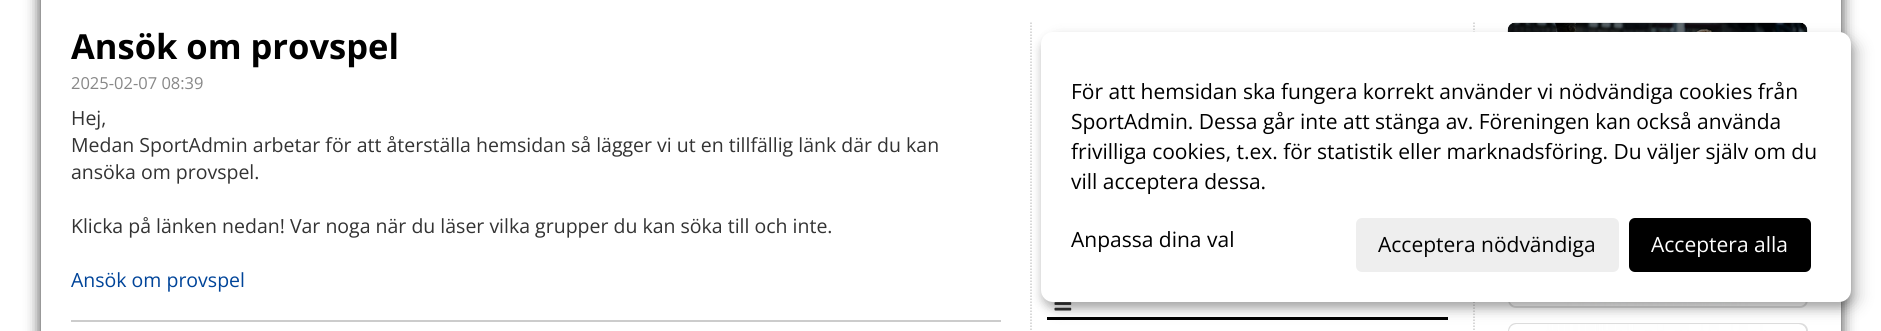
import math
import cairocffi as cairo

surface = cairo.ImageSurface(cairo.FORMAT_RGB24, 1881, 331)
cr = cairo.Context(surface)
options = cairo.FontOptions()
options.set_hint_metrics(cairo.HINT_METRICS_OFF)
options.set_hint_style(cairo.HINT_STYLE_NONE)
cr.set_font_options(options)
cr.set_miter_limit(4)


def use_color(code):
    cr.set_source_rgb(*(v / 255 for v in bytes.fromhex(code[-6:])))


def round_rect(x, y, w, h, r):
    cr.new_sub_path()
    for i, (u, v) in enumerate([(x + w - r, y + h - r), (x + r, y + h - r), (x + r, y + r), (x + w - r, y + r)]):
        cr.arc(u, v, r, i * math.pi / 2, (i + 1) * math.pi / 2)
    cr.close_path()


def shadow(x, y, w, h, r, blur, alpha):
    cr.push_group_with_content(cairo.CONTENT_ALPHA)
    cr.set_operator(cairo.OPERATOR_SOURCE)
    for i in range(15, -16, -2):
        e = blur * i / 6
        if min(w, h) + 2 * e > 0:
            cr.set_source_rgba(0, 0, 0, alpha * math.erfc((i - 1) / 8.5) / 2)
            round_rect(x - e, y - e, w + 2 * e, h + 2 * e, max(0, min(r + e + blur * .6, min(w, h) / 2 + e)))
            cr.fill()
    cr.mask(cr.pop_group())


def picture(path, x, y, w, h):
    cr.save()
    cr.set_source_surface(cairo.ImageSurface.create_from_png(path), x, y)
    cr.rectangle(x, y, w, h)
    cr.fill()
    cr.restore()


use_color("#ffffff")
cr.paint()
use_color("#333333")
shadow(41, -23, 1800, 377, 0, 7.5, 1)
use_color("#ffffff")
cr.rectangle(41, 0, 1800, 331)
cr.fill()
cr.select_font_face("Open Sans", cairo.FONT_SLANT_NORMAL, cairo.FONT_WEIGHT_BOLD)
cr.set_font_size(34.5)
use_color("#000000")
cr.move_to(71, 59)
cr.show_text("Ansök om provspel")
cr.select_font_face("Open Sans")
cr.set_font_size(16.5)
use_color("#888888")
cr.move_to(71, 89)
cr.show_text("2025-02-07 08:39")
cr.set_font_size(19.5)
use_color("#333333")
cr.move_to(71, 125)
cr.show_text("Hej,")
cr.move_to(71, 152)
cr.show_text("Medan SportAdmin arbetar för att återställa hemsidan så lägger vi ut en tillfällig länk där du kan")
cr.move_to(71, 179)
cr.show_text("ansöka om provspel.")
cr.move_to(71, 233)
cr.show_text("Klicka på länken nedan! Var noga när du läser vilka grupper du kan söka till och inte.")
use_color("#004499")
cr.move_to(71, 287)
cr.show_text("Ansök om provspel")
use_color("#cccccc")
cr.rectangle(71, 320, 930, 2)
cr.fill()
cr.new_path()
cr.move_to(1031, 22.5)
cr.line_to(1031, 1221)
cr.set_line_width(1.5)
cr.set_dash([1.5, 1.5])
cr.stroke()
use_color("#000000")
cr.rectangle(1047, 317, 401, 3)
cr.fill()
picture("img1.png", 1054, 302, 18, 9)
cr.new_path()
cr.move_to(1474, 22.5)
cr.line_to(1474, 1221)
use_color("#cccccc")
cr.stroke()
picture("img2.png", 1507, 22, 301, 10)
round_rect(1509, 232, 298, 75, 7)
use_color("#dddddd")
cr.set_line_width(2)
cr.set_dash([])
cr.stroke()
picture("img3.png", 1510, 302, 292, 4)
round_rect(1509, 324, 298, 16, 7)
cr.stroke()
picture("img4.png", 1509, 324, 297, 7)
use_color("#000000")
shadow(1049, 39, 810, 270, 12, 7.5, 0.19)
shadow(1041, 38, 810, 270, 12, 4.5, 0.2)
use_color("#ffffff")
round_rect(1041, 32, 810, 270, 12)
cr.fill()
cr.set_font_size(21)
use_color("#000000")
cr.move_to(1071, 99)
cr.show_text("För att hemsidan ska fungera korrekt använder vi nödvändiga cookies från")
cr.move_to(1071, 129)
cr.show_text("SportAdmin. Dessa går inte att stänga av. Föreningen kan också använda")
cr.move_to(1071, 159)
cr.show_text("frivilliga cookies, t.ex. för statistik eller marknadsföring. Du väljer själv om du")
cr.move_to(1071, 189)
cr.show_text("vill acceptera dessa.")
cr.move_to(1071, 247)
cr.show_text("Anpassa dina val")
use_color("#eeeeee")
round_rect(1356, 218, 263, 54, 6)
cr.fill()
use_color("#000000")
cr.move_to(1378, 252)
cr.show_text("Acceptera nödvändiga")
round_rect(1629, 218, 182, 54, 6)
cr.fill()
use_color("#ffffff")
cr.move_to(1651, 252)
cr.show_text("Acceptera alla")
surface.write_to_png("result.png")
